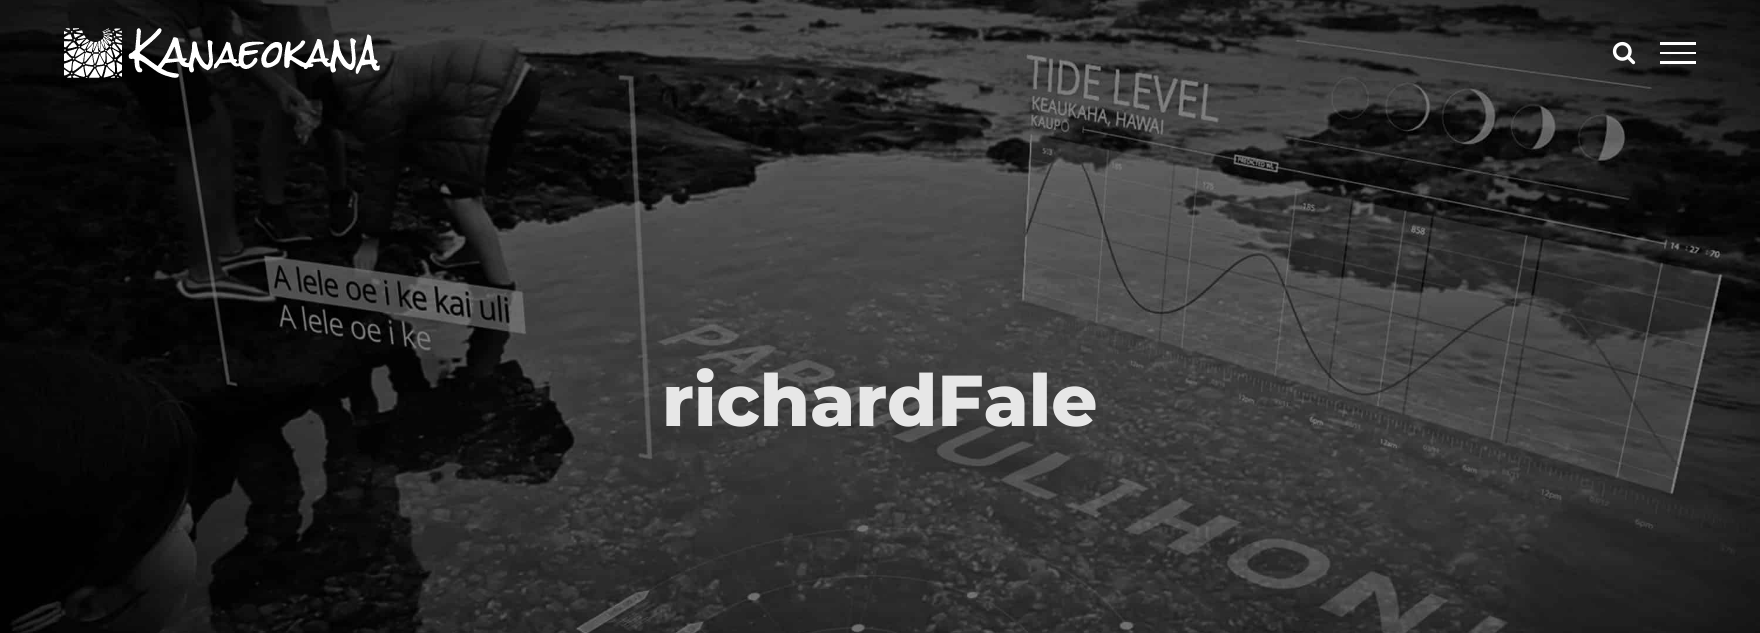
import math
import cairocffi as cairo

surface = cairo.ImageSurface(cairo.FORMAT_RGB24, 1760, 633)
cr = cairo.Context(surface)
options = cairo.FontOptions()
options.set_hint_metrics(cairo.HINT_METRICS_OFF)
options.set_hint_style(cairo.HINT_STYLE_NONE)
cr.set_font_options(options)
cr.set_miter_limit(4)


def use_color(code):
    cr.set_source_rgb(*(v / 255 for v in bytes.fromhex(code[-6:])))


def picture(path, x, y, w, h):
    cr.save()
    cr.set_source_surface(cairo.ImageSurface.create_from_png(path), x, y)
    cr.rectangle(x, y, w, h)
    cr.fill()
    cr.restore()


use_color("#ffffff")
cr.paint()
picture("img3.png", 0, 0, 1760, 633)
picture("img1.png", 64, 28, 316, 51)
picture("img2.png", 1612, 41, 24, 24)
use_color("#ffffff")
cr.rectangle(1660, 42, 36, 3)
cr.fill()
cr.rectangle(1660, 52, 36, 2)
cr.fill()
cr.rectangle(1660, 61, 36, 3)
cr.fill()
cr.select_font_face("Montserrat ExtraBold")
cr.set_font_size(72)
use_color("#e7e7e7")
cr.move_to(662, 426)
cr.show_text("richardFale")
surface.write_to_png("result.png")
